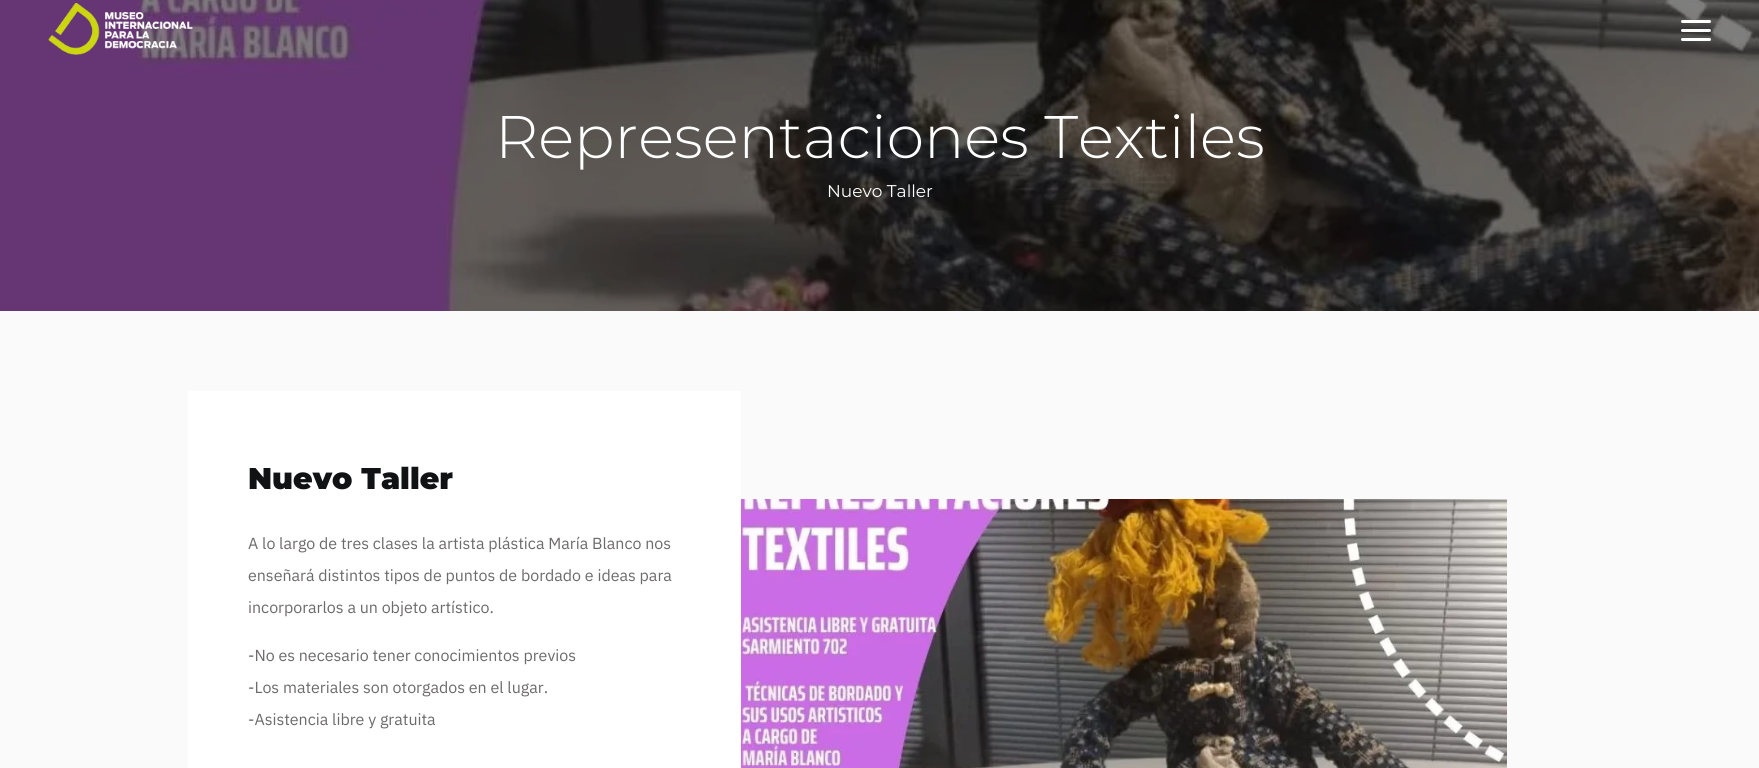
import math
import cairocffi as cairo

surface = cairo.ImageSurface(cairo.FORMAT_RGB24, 1759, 768)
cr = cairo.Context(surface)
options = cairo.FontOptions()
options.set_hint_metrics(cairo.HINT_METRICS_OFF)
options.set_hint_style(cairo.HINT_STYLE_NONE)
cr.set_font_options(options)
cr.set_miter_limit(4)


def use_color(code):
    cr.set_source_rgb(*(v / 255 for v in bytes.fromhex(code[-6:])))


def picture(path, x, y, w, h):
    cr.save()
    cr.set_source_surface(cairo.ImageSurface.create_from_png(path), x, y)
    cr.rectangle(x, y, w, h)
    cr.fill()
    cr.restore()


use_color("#fafafa")
cr.paint()
picture("img2.png", 0, 0, 1759, 311)
picture("img1.png", 48, 3, 145, 52)
cr.new_path()
cr.move_to(1682.5, 30.5)
cr.line_to(1709.5, 30.5)
cr.move_to(1682.5, 21.5)
cr.line_to(1709.5, 21.5)
cr.move_to(1682.5, 39.5)
cr.line_to(1709.5, 39.5)
use_color("#ffffff")
cr.set_line_width(3)
cr.set_line_cap(cairo.LINE_CAP_ROUND)
cr.set_line_join(cairo.LINE_JOIN_ROUND)
cr.stroke()
cr.select_font_face("Montserrat Light")
cr.set_font_size(60)
cr.move_to(495, 158)
cr.show_text("Representaciones Textiles")
cr.select_font_face("Montserrat")
cr.set_font_size(17)
cr.move_to(827, 197)
cr.show_text("Nuevo Taller")
cr.rectangle(188, 391, 553, 377)
cr.fill()
cr.select_font_face("Montserrat Black")
cr.set_font_size(30)
use_color("#111213")
cr.move_to(248, 489)
cr.show_text("Nuevo Taller")
cr.select_font_face("IBM Plex Sans")
cr.set_font_size(16)
use_color("#6d6a6a")
cr.move_to(248, 549)
cr.show_text("A lo largo de tres clases la artista plástica María Blanco nos")
cr.move_to(248, 581)
cr.show_text("enseñará distintos tipos de puntos de bordado e ideas para")
cr.move_to(248, 613)
cr.show_text("incorporarlos a un objeto artístico.")
cr.move_to(248, 661)
cr.show_text("-No es necesario tener conocimientos previos")
cr.move_to(248, 693)
cr.show_text("-Los materiales son otorgados en el lugar.")
cr.move_to(248, 725)
cr.show_text("-Asistencia libre y gratuita")
picture("img3.png", 741, 499, 766, 269)
surface.write_to_png("result.png")
